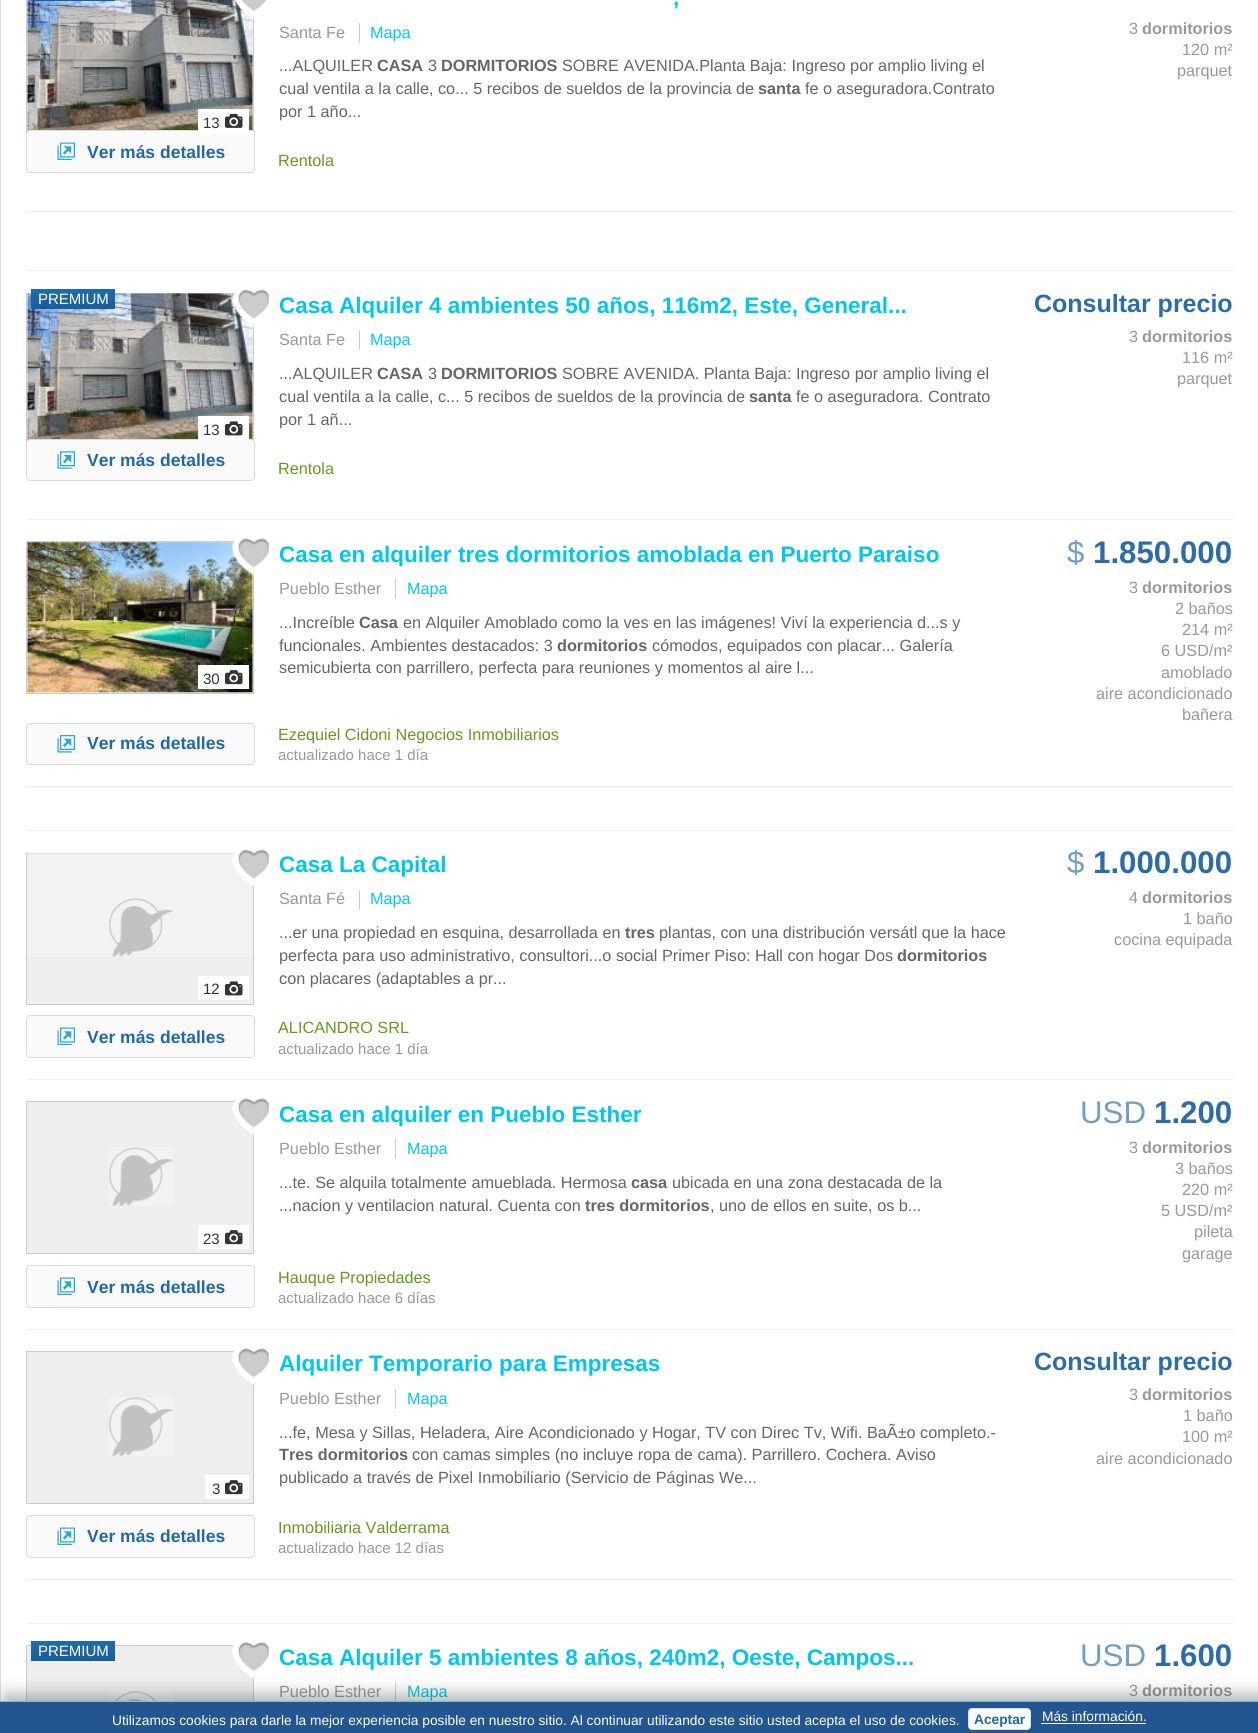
import math
import cairocffi as cairo

surface = cairo.ImageSurface(cairo.FORMAT_RGB24, 1258, 1733)
cr = cairo.Context(surface)
options = cairo.FontOptions()
options.set_hint_metrics(cairo.HINT_METRICS_OFF)
options.set_hint_style(cairo.HINT_STYLE_NONE)
cr.set_font_options(options)
cr.set_miter_limit(4)


def use_color(code):
    cr.set_source_rgb(*(v / 255 for v in bytes.fromhex(code[-6:])))


def round_rect(x, y, w, h, r):
    cr.new_sub_path()
    for i, (u, v) in enumerate([(x + w - r, y + h - r), (x + r, y + h - r), (x + r, y + r), (x + w - r, y + r)]):
        cr.arc(u, v, r, i * math.pi / 2, (i + 1) * math.pi / 2)
    cr.close_path()


def shadow(x, y, w, h, r, blur, alpha):
    cr.push_group_with_content(cairo.CONTENT_ALPHA)
    cr.set_operator(cairo.OPERATOR_SOURCE)
    for i in range(15, -16, -2):
        e = blur * i / 6
        if min(w, h) + 2 * e > 0:
            cr.set_source_rgba(0, 0, 0, alpha * math.erfc((i - 1) / 8.5) / 2)
            round_rect(x - e, y - e, w + 2 * e, h + 2 * e, max(0, min(r + e + blur * .6, min(w, h) / 2 + e)))
            cr.fill()
    cr.mask(cr.pop_group())


def picture(path, x, y, w, h):
    cr.save()
    cr.set_source_surface(cairo.ImageSurface.create_from_png(path), x, y)
    cr.rectangle(x, y, w, h)
    cr.fill()
    cr.restore()


use_color("#ffffff")
cr.paint()
cr.rectangle(0.5, -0.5, 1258, 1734)
use_color("#dddddd")
cr.set_line_width(1)
cr.stroke()
use_color("#eeeeee")
cr.rectangle(26, 211, 1207, 1)
cr.fill()
cr.select_font_face("Liberation Sans", cairo.FONT_SLANT_NORMAL, cairo.FONT_WEIGHT_BOLD)
cr.set_font_size(22.5)
use_color("#00c7ed")
cr.move_to(673, 5)
cr.show_text(",")
cr.select_font_face("Liberation Sans")
cr.set_font_size(16.25)
use_color("#999999")
cr.move_to(279, 38)
cr.show_text("Santa Fe")
use_color("#cccccc")
cr.rectangle(359, 23, 1, 20)
cr.fill()
use_color("#00c7ed")
cr.move_to(370, 38)
cr.show_text("Mapa")
use_color("#666666")
cr.move_to(279, 71)
cr.show_text("...ALQUILER")
cr.select_font_face("Liberation Sans", cairo.FONT_SLANT_NORMAL, cairo.FONT_WEIGHT_BOLD)
cr.move_to(377, 71)
cr.show_text("CASA")
cr.select_font_face("Liberation Sans")
cr.move_to(428, 71)
cr.show_text("3")
cr.select_font_face("Liberation Sans", cairo.FONT_SLANT_NORMAL, cairo.FONT_WEIGHT_BOLD)
cr.move_to(441, 71)
cr.show_text("DORMITORIOS")
cr.select_font_face("Liberation Sans")
cr.move_to(562, 71)
cr.show_text("SOBRE AVENIDA.Planta Baja: Ingreso por amplio living el")
cr.move_to(279, 94)
cr.show_text("cual ventila a la calle, co... 5 recibos de sueldos de la provincia de")
cr.select_font_face("Liberation Sans", cairo.FONT_SLANT_NORMAL, cairo.FONT_WEIGHT_BOLD)
cr.move_to(758, 94)
cr.show_text("santa")
cr.select_font_face("Liberation Sans")
cr.move_to(805, 94)
cr.show_text("fe o aseguradora.Contrato")
cr.move_to(279, 117)
cr.show_text("por 1 año...")
use_color("#999999")
cr.move_to(1129, 34)
cr.show_text("3")
cr.select_font_face("Liberation Sans", cairo.FONT_SLANT_NORMAL, cairo.FONT_WEIGHT_BOLD)
cr.move_to(1142, 34)
cr.show_text("dormitorios")
cr.select_font_face("Liberation Sans")
cr.move_to(1182, 55)
cr.show_text("120 m²")
cr.move_to(1177, 76)
cr.show_text("parquet")
use_color("#eeeeee")
cr.rectangle(27, 0, 226, 132)
cr.fill()
cr.rectangle(26.5, -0.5, 227, 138)
use_color("#cccccc")
cr.stroke()
picture("img1.png", 27, 0, 226, 132)
gradient = cairo.LinearGradient(73, -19, 73, 1.3)
gradient.add_color_stop_rgba(0, 0.114, 0.42, 0.686, 1)
gradient.add_color_stop_rgba(1, 0.094, 0.369, 0.6, 1)
cr.set_source(gradient)
cr.rectangle(31, 0, 84, 1)
cr.fill()
picture("img2.png", 234, 0, 33, 19)
use_color("#fafafa")
round_rect(26.5, 130.5, 228, 42, 3.5)
cr.fill_preserve()
use_color("#dddddd")
cr.stroke()
use_color("#ffffff")
cr.rectangle(198, 109, 51, 24)
cr.fill()
cr.set_font_size(15)
use_color("#333333")
cr.move_to(203, 128)
cr.show_text("13")
picture("img3.png", 225, 113, 18, 15)
picture("img4.png", 57, 142, 18, 18)
cr.select_font_face("Liberation Sans", cairo.FONT_SLANT_NORMAL, cairo.FONT_WEIGHT_BOLD)
cr.set_font_size(17.5)
use_color("#2068ac")
cr.move_to(87, 158)
cr.show_text("Ver más detalles")
cr.select_font_face("Liberation Sans")
cr.set_font_size(16.25)
use_color("#669a1e")
cr.move_to(278, 166)
cr.show_text("Rentola")
use_color("#eeeeee")
cr.rectangle(26, 270, 1207, 1)
cr.fill()
cr.rectangle(26, 519, 1207, 1)
cr.fill()
cr.rectangle(27, 294, 226, 147)
cr.fill()
cr.rectangle(26.5, 293.5, 227, 151)
use_color("#cccccc")
cr.stroke()
picture("img6.png", 27, 293, 226, 148)
picture("img5.png", 232, 289, 37, 37)
gradient = cairo.LinearGradient(73, 289, 73, 309)
gradient.add_color_stop_rgba(0, 0.114, 0.42, 0.686, 1)
gradient.add_color_stop_rgba(1, 0.094, 0.369, 0.6, 1)
cr.set_source(gradient)
cr.rectangle(31, 289, 84, 20)
cr.fill()
cr.set_font_size(15)
use_color("#ffffff")
cr.move_to(38, 304)
cr.show_text("PREMIUM")
use_color("#fafafa")
round_rect(26.5, 439.5, 228, 41, 3.5)
cr.fill_preserve()
use_color("#dddddd")
cr.stroke()
use_color("#ffffff")
cr.rectangle(198, 416, 51, 24)
cr.fill()
use_color("#333333")
cr.move_to(203, 435)
cr.show_text("13")
picture("img7.png", 225, 421, 18, 15)
cr.select_font_face("Liberation Sans", cairo.FONT_SLANT_NORMAL, cairo.FONT_WEIGHT_BOLD)
cr.set_font_size(22.5)
use_color("#00c7ed")
cr.move_to(279, 313)
cr.show_text("Casa Alquiler 4 ambientes 50 años, 116m2, Este, General...")
cr.select_font_face("Liberation Sans")
cr.set_font_size(16.25)
use_color("#999999")
cr.move_to(279, 345)
cr.show_text("Santa Fe")
use_color("#cccccc")
cr.rectangle(359, 330, 1, 20)
cr.fill()
use_color("#00c7ed")
cr.move_to(370, 345)
cr.show_text("Mapa")
use_color("#666666")
cr.move_to(279, 379)
cr.show_text("...ALQUILER")
cr.select_font_face("Liberation Sans", cairo.FONT_SLANT_NORMAL, cairo.FONT_WEIGHT_BOLD)
cr.move_to(377, 379)
cr.show_text("CASA")
cr.select_font_face("Liberation Sans")
cr.move_to(428, 379)
cr.show_text("3")
cr.select_font_face("Liberation Sans", cairo.FONT_SLANT_NORMAL, cairo.FONT_WEIGHT_BOLD)
cr.move_to(441, 379)
cr.show_text("DORMITORIOS")
cr.select_font_face("Liberation Sans")
cr.move_to(562, 379)
cr.show_text("SOBRE AVENIDA. Planta Baja: Ingreso por amplio living el")
cr.move_to(279, 402)
cr.show_text("cual ventila a la calle, c... 5 recibos de sueldos de la provincia de")
cr.select_font_face("Liberation Sans", cairo.FONT_SLANT_NORMAL, cairo.FONT_WEIGHT_BOLD)
cr.move_to(749, 402)
cr.show_text("santa")
cr.select_font_face("Liberation Sans")
cr.move_to(796, 402)
cr.show_text("fe o aseguradora. Contrato")
cr.move_to(279, 425)
cr.show_text("por 1 añ...")
cr.select_font_face("Liberation Sans", cairo.FONT_SLANT_NORMAL, cairo.FONT_WEIGHT_BOLD)
cr.set_font_size(25)
use_color("#2b6cad")
cr.move_to(1034, 312)
cr.show_text("Consultar precio")
cr.select_font_face("Liberation Sans")
cr.set_font_size(16.25)
use_color("#999999")
cr.move_to(1129, 342)
cr.show_text("3")
cr.select_font_face("Liberation Sans", cairo.FONT_SLANT_NORMAL, cairo.FONT_WEIGHT_BOLD)
cr.move_to(1142, 342)
cr.show_text("dormitorios")
cr.select_font_face("Liberation Sans")
cr.move_to(1182, 363)
cr.show_text("116 m²")
cr.move_to(1177, 384)
cr.show_text("parquet")
picture("img8.png", 57, 451, 18, 18)
cr.select_font_face("Liberation Sans", cairo.FONT_SLANT_NORMAL, cairo.FONT_WEIGHT_BOLD)
cr.set_font_size(17.5)
use_color("#2068ac")
cr.move_to(87, 466)
cr.show_text("Ver más detalles")
cr.select_font_face("Liberation Sans")
cr.set_font_size(16.25)
use_color("#669a1e")
cr.move_to(278, 474)
cr.show_text("Rentola")
use_color("#eeeeee")
cr.rectangle(26, 786, 1207, 1)
cr.fill()
cr.select_font_face("Liberation Sans", cairo.FONT_SLANT_NORMAL, cairo.FONT_WEIGHT_BOLD)
cr.set_font_size(22.5)
use_color("#00c7ed")
cr.move_to(279, 562)
cr.show_text("Casa")
cr.save()
cr.rectangle(279, 541, 729, 25)
cr.clip()
cr.move_to(339, 562)
cr.show_text("en alquiler")
cr.restore()
cr.move_to(458, 562)
cr.show_text("tres dormitorios amoblada en Puerto Paraiso")
cr.select_font_face("Liberation Sans")
cr.set_font_size(16.25)
use_color("#999999")
cr.move_to(279, 594)
cr.show_text("Pueblo Esther")
use_color("#cccccc")
cr.rectangle(395, 579, 1, 20)
cr.fill()
use_color("#00c7ed")
cr.move_to(407, 594)
cr.show_text("Mapa")
use_color("#666666")
cr.move_to(279, 628)
cr.show_text("...Increíble")
cr.select_font_face("Liberation Sans", cairo.FONT_SLANT_NORMAL, cairo.FONT_WEIGHT_BOLD)
cr.move_to(359, 628)
cr.show_text("Casa")
cr.select_font_face("Liberation Sans")
cr.move_to(403, 628)
cr.show_text("en Alquiler Amoblado como la ves en las imágenes! Viví la experiencia d...s y")
cr.move_to(279, 651)
cr.show_text("funcionales. Ambientes destacados: 3")
cr.select_font_face("Liberation Sans", cairo.FONT_SLANT_NORMAL, cairo.FONT_WEIGHT_BOLD)
cr.move_to(557, 651)
cr.show_text("dormitorios")
cr.select_font_face("Liberation Sans")
cr.move_to(652, 651)
cr.show_text("cómodos, equipados con placar... Galería")
cr.move_to(279, 673)
cr.show_text("semicubierta con parrillero, perfecta para reuniones y momentos al aire l...")
cr.set_font_size(31.25)
use_color("#709ec9")
cr.move_to(1067, 563)
cr.show_text("$")
cr.select_font_face("Liberation Sans", cairo.FONT_SLANT_NORMAL, cairo.FONT_WEIGHT_BOLD)
use_color("#2b6cad")
cr.move_to(1093, 563)
cr.show_text("1.850.000")
cr.select_font_face("Liberation Sans")
cr.set_font_size(16.25)
use_color("#999999")
cr.move_to(1129, 593)
cr.show_text("3")
cr.select_font_face("Liberation Sans", cairo.FONT_SLANT_NORMAL, cairo.FONT_WEIGHT_BOLD)
cr.move_to(1142, 593)
cr.show_text("dormitorios")
cr.select_font_face("Liberation Sans")
cr.move_to(1175, 614)
cr.show_text("2 baños")
cr.move_to(1182, 635)
cr.show_text("214 m²")
cr.move_to(1161, 656)
cr.show_text("6 USD/m²")
cr.move_to(1161, 678)
cr.show_text("amoblado")
cr.move_to(1096, 699)
cr.show_text("aire acondicionado")
cr.move_to(1182, 720)
cr.show_text("bañera")
use_color("#eeeeee")
cr.rectangle(26.5, 541.5, 227, 152)
cr.fill_preserve()
use_color("#cccccc")
cr.stroke()
picture("img10.png", 27, 542, 226, 151)
picture("img9.png", 232, 538, 37, 37)
use_color("#ffffff")
cr.rectangle(198, 665, 51, 24)
cr.fill()
cr.set_font_size(15)
use_color("#333333")
cr.move_to(203, 684)
cr.show_text("30")
picture("img11.png", 225, 670, 18, 15)
use_color("#fafafa")
round_rect(26.5, 723.5, 228, 41, 3.5)
cr.fill_preserve()
use_color("#dddddd")
cr.stroke()
picture("img12.png", 57, 735, 18, 18)
cr.select_font_face("Liberation Sans", cairo.FONT_SLANT_NORMAL, cairo.FONT_WEIGHT_BOLD)
cr.set_font_size(17.5)
use_color("#2068ac")
cr.move_to(87, 749)
cr.show_text("Ver más detalles")
cr.select_font_face("Liberation Sans")
cr.set_font_size(16.25)
use_color("#669a1e")
cr.move_to(278, 740)
cr.show_text("Ezequiel Cidoni Negocios Inmobiliarios")
cr.set_font_size(15)
use_color("#999999")
cr.move_to(278, 760)
cr.show_text("actualizado hace 1 día")
use_color("#eeeeee")
cr.rectangle(26, 830, 1207, 1)
cr.fill()
cr.rectangle(26, 1079, 1207, 1)
cr.fill()
cr.rectangle(26.5, 853.5, 227, 151)
cr.fill_preserve()
use_color("#cccccc")
cr.stroke()
picture("img14.png", 27, 853, 226, 104)
picture("img13.png", 232, 849, 37, 37)
use_color("#ffffff")
cr.rectangle(198, 976, 51, 24)
cr.fill()
use_color("#333333")
cr.move_to(203, 994)
cr.show_text("12")
picture("img7.png", 225, 981, 18, 15)
cr.select_font_face("Liberation Sans", cairo.FONT_SLANT_NORMAL, cairo.FONT_WEIGHT_BOLD)
cr.set_font_size(22.5)
use_color("#00c7ed")
cr.move_to(279, 872)
cr.show_text("Casa La Capital")
cr.select_font_face("Liberation Sans")
cr.set_font_size(16.25)
use_color("#999999")
cr.move_to(279, 904)
cr.show_text("Santa Fé")
use_color("#cccccc")
cr.rectangle(359, 890, 1, 20)
cr.fill()
use_color("#00c7ed")
cr.move_to(370, 904)
cr.show_text("Mapa")
use_color("#666666")
cr.move_to(279, 938)
cr.show_text("...er una propiedad en esquina, desarrollada en")
cr.select_font_face("Liberation Sans", cairo.FONT_SLANT_NORMAL, cairo.FONT_WEIGHT_BOLD)
cr.move_to(625, 938)
cr.show_text("tres")
cr.select_font_face("Liberation Sans")
cr.move_to(659, 938)
cr.show_text("plantas, con una distribución versátl que la hace")
cr.move_to(279, 961)
cr.show_text("perfecta para uso administrativo, consultori...o social Primer Piso: Hall con hogar Dos")
cr.select_font_face("Liberation Sans", cairo.FONT_SLANT_NORMAL, cairo.FONT_WEIGHT_BOLD)
cr.move_to(897, 961)
cr.show_text("dormitorios")
cr.select_font_face("Liberation Sans")
cr.move_to(279, 984)
cr.show_text("con placares (adaptables a pr...")
cr.set_font_size(31.25)
use_color("#709ec9")
cr.move_to(1067, 873)
cr.show_text("$")
cr.select_font_face("Liberation Sans", cairo.FONT_SLANT_NORMAL, cairo.FONT_WEIGHT_BOLD)
use_color("#2b6cad")
cr.move_to(1093, 873)
cr.show_text("1.000.000")
cr.select_font_face("Liberation Sans")
cr.set_font_size(16.25)
use_color("#999999")
cr.move_to(1129, 903)
cr.show_text("4")
cr.select_font_face("Liberation Sans", cairo.FONT_SLANT_NORMAL, cairo.FONT_WEIGHT_BOLD)
cr.move_to(1142, 903)
cr.show_text("dormitorios")
cr.select_font_face("Liberation Sans")
cr.move_to(1183, 924)
cr.show_text("1 baño")
cr.move_to(1114, 945)
cr.show_text("cocina equipada")
use_color("#669a1e")
cr.move_to(278, 1033)
cr.show_text("ALICANDRO SRL")
use_color("#fafafa")
round_rect(26.5, 1015.5, 228, 42, 3.5)
cr.fill_preserve()
use_color("#dddddd")
cr.stroke()
picture("img4.png", 57, 1027, 18, 18)
cr.select_font_face("Liberation Sans", cairo.FONT_SLANT_NORMAL, cairo.FONT_WEIGHT_BOLD)
cr.set_font_size(17.5)
use_color("#2068ac")
cr.move_to(87, 1043)
cr.show_text("Ver más detalles")
cr.select_font_face("Liberation Sans")
cr.set_font_size(15)
use_color("#999999")
cr.move_to(278, 1054)
cr.show_text("actualizado hace 1 día")
use_color("#eeeeee")
cr.rectangle(26, 1329, 1207, 1)
cr.fill()
cr.select_font_face("Liberation Sans", cairo.FONT_SLANT_NORMAL, cairo.FONT_WEIGHT_BOLD)
cr.set_font_size(22.5)
use_color("#00c7ed")
cr.move_to(279, 1122)
cr.show_text("Casa")
cr.save()
cr.rectangle(279, 1101, 729, 25)
cr.clip()
cr.move_to(339, 1122)
cr.show_text("en alquiler en Pueblo Esther")
cr.restore()
cr.select_font_face("Liberation Sans")
cr.set_font_size(16.25)
use_color("#999999")
cr.move_to(279, 1154)
cr.show_text("Pueblo Esther")
use_color("#cccccc")
cr.rectangle(395, 1139, 1, 20)
cr.fill()
use_color("#00c7ed")
cr.move_to(407, 1154)
cr.show_text("Mapa")
use_color("#666666")
cr.move_to(279, 1188)
cr.show_text("...te. Se alquila totalmente amueblada. Hermosa")
cr.select_font_face("Liberation Sans", cairo.FONT_SLANT_NORMAL, cairo.FONT_WEIGHT_BOLD)
cr.move_to(631, 1188)
cr.show_text("casa")
cr.select_font_face("Liberation Sans")
cr.move_to(672, 1188)
cr.show_text("ubicada en una zona destacada de la")
cr.move_to(279, 1211)
cr.show_text("...nacion y ventilacion natural. Cuenta con")
cr.select_font_face("Liberation Sans", cairo.FONT_SLANT_NORMAL, cairo.FONT_WEIGHT_BOLD)
cr.move_to(585, 1211)
cr.show_text("tres dormitorios")
cr.select_font_face("Liberation Sans")
cr.move_to(710, 1211)
cr.show_text(", uno de ellos en suite, os b...")
cr.set_font_size(31.25)
use_color("#709ec9")
cr.move_to(1080, 1123)
cr.show_text("USD")
cr.select_font_face("Liberation Sans", cairo.FONT_SLANT_NORMAL, cairo.FONT_WEIGHT_BOLD)
use_color("#2b6cad")
cr.move_to(1154, 1123)
cr.show_text("1.200")
cr.select_font_face("Liberation Sans")
cr.set_font_size(16.25)
use_color("#999999")
cr.move_to(1129, 1153)
cr.show_text("3")
cr.select_font_face("Liberation Sans", cairo.FONT_SLANT_NORMAL, cairo.FONT_WEIGHT_BOLD)
cr.move_to(1142, 1153)
cr.show_text("dormitorios")
cr.select_font_face("Liberation Sans")
cr.move_to(1175, 1174)
cr.show_text("3 baños")
cr.move_to(1182, 1195)
cr.show_text("220 m²")
cr.move_to(1161, 1216)
cr.show_text("5 USD/m²")
cr.move_to(1194, 1237)
cr.show_text("pileta")
cr.move_to(1182, 1259)
cr.show_text("garage")
use_color("#eeeeee")
cr.rectangle(26.5, 1101.5, 227, 152)
cr.fill_preserve()
use_color("#cccccc")
cr.stroke()
picture("img15.png", 232, 1098, 37, 37)
picture("img16.png", 109, 1147, 64, 59)
use_color("#ffffff")
cr.rectangle(198, 1225, 51, 24)
cr.fill()
cr.set_font_size(15)
use_color("#333333")
cr.move_to(203, 1244)
cr.show_text("23")
picture("img11.png", 225, 1230, 18, 15)
use_color("#fafafa")
round_rect(26.5, 1265.5, 228, 42, 3.5)
cr.fill_preserve()
use_color("#dddddd")
cr.stroke()
picture("img4.png", 57, 1277, 18, 18)
cr.select_font_face("Liberation Sans", cairo.FONT_SLANT_NORMAL, cairo.FONT_WEIGHT_BOLD)
cr.set_font_size(17.5)
use_color("#2068ac")
cr.move_to(87, 1293)
cr.show_text("Ver más detalles")
cr.select_font_face("Liberation Sans")
cr.set_font_size(16.25)
use_color("#669a1e")
cr.move_to(278, 1283)
cr.show_text("Hauque Propiedades")
cr.set_font_size(15)
use_color("#999999")
cr.move_to(278, 1303)
cr.show_text("actualizado hace 6 días")
use_color("#eeeeee")
cr.rectangle(26, 1579, 1207, 1)
cr.fill()
cr.select_font_face("Liberation Sans", cairo.FONT_SLANT_NORMAL, cairo.FONT_WEIGHT_BOLD)
cr.set_font_size(22.5)
use_color("#00c7ed")
cr.move_to(279, 1371)
cr.show_text("Alquiler Temporario para Empresas")
cr.select_font_face("Liberation Sans")
cr.set_font_size(16.25)
use_color("#999999")
cr.move_to(279, 1404)
cr.show_text("Pueblo Esther")
use_color("#cccccc")
cr.rectangle(395, 1389, 1, 20)
cr.fill()
use_color("#00c7ed")
cr.move_to(407, 1404)
cr.show_text("Mapa")
use_color("#666666")
cr.move_to(279, 1438)
cr.show_text("...fe, Mesa y Sillas, Heladera, Aire Acondicionado y Hogar, TV con Direc Tv, Wifi. BaÃ±o completo.-")
cr.select_font_face("Liberation Sans", cairo.FONT_SLANT_NORMAL, cairo.FONT_WEIGHT_BOLD)
cr.move_to(279, 1460)
cr.show_text("Tres dormitorios")
cr.select_font_face("Liberation Sans")
cr.move_to(412, 1460)
cr.show_text("con camas simples (no incluye ropa de cama). Parrillero. Cochera. Aviso")
cr.move_to(279, 1483)
cr.show_text("publicado a través de Pixel Inmobiliario (Servicio de Páginas We...")
cr.select_font_face("Liberation Sans", cairo.FONT_SLANT_NORMAL, cairo.FONT_WEIGHT_BOLD)
cr.set_font_size(25)
use_color("#2b6cad")
cr.move_to(1034, 1370)
cr.show_text("Consultar precio")
cr.select_font_face("Liberation Sans")
cr.set_font_size(16.25)
use_color("#999999")
cr.move_to(1129, 1400)
cr.show_text("3")
cr.select_font_face("Liberation Sans", cairo.FONT_SLANT_NORMAL, cairo.FONT_WEIGHT_BOLD)
cr.move_to(1142, 1400)
cr.show_text("dormitorios")
cr.select_font_face("Liberation Sans")
cr.move_to(1183, 1421)
cr.show_text("1 baño")
cr.move_to(1182, 1442)
cr.show_text("100 m²")
cr.move_to(1096, 1464)
cr.show_text("aire acondicionado")
use_color("#eeeeee")
cr.rectangle(26.5, 1351.5, 227, 152)
cr.fill_preserve()
use_color("#cccccc")
cr.stroke()
picture("img15.png", 232, 1348, 37, 37)
picture("img16.png", 109, 1397, 64, 59)
use_color("#ffffff")
cr.rectangle(205, 1475, 44, 24)
cr.fill()
cr.set_font_size(15)
use_color("#333333")
cr.move_to(212, 1494)
cr.show_text("3")
picture("img11.png", 225, 1480, 18, 15)
cr.set_font_size(16.25)
use_color("#669a1e")
cr.move_to(278, 1533)
cr.show_text("Inmobiliaria Valderrama")
use_color("#fafafa")
round_rect(26.5, 1515.5, 228, 42, 3.5)
cr.fill_preserve()
use_color("#dddddd")
cr.stroke()
picture("img4.png", 57, 1527, 18, 18)
cr.select_font_face("Liberation Sans", cairo.FONT_SLANT_NORMAL, cairo.FONT_WEIGHT_BOLD)
cr.set_font_size(17.5)
use_color("#2068ac")
cr.move_to(87, 1542)
cr.show_text("Ver más detalles")
cr.select_font_face("Liberation Sans")
cr.set_font_size(15)
use_color("#999999")
cr.move_to(278, 1553)
cr.show_text("actualizado hace 12 días")
use_color("#eeeeee")
cr.rectangle(26, 1623, 1207, 1)
cr.fill()
cr.rectangle(27, 1646, 226, 55)
cr.fill()
cr.rectangle(26.5, 1645.5, 227, 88)
use_color("#cccccc")
cr.stroke()
gradient = cairo.LinearGradient(73, 1641, 73, 1661)
gradient.add_color_stop_rgba(0, 0.114, 0.42, 0.686, 1)
gradient.add_color_stop_rgba(1, 0.094, 0.369, 0.6, 1)
cr.set_source(gradient)
cr.rectangle(31, 1641, 84, 20)
cr.fill()
use_color("#ffffff")
cr.move_to(38, 1656)
cr.show_text("PREMIUM")
picture("img17.png", 232, 1642, 37, 37)
picture("img18.png", 109, 1691, 64, 10)
cr.select_font_face("Liberation Sans", cairo.FONT_SLANT_NORMAL, cairo.FONT_WEIGHT_BOLD)
cr.set_font_size(22.5)
use_color("#00c7ed")
cr.move_to(279, 1665)
cr.show_text("Casa Alquiler 5 ambientes 8 años, 240m2, Oeste, Campos...")
cr.select_font_face("Liberation Sans")
cr.set_font_size(16.25)
use_color("#999999")
cr.move_to(279, 1697)
cr.show_text("Pueblo Esther")
use_color("#cccccc")
cr.rectangle(395, 1683, 1, 20)
cr.fill()
use_color("#00c7ed")
cr.move_to(407, 1697)
cr.show_text("Mapa")
cr.set_font_size(31.25)
use_color("#709ec9")
cr.move_to(1080, 1666)
cr.show_text("USD")
cr.select_font_face("Liberation Sans", cairo.FONT_SLANT_NORMAL, cairo.FONT_WEIGHT_BOLD)
use_color("#2b6cad")
cr.move_to(1154, 1666)
cr.show_text("1.600")
cr.select_font_face("Liberation Sans")
cr.set_font_size(16.25)
use_color("#999999")
cr.move_to(1129, 1696)
cr.show_text("3")
cr.select_font_face("Liberation Sans", cairo.FONT_SLANT_NORMAL, cairo.FONT_WEIGHT_BOLD)
cr.move_to(1142, 1696)
cr.show_text("dormitorios")
use_color("#323232")
shadow(5, 1695, 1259, 33, 0, 9, 0.4)
use_color("#235590")
cr.rectangle(0, 1702, 1258, 31)
cr.fill()
use_color("#6ac8e8")
cr.rectangle(0, 1701, 1258, 1)
cr.fill()
cr.select_font_face("Liberation Sans")
cr.set_font_size(13.75)
use_color("#ffffff")
cr.move_to(112, 1725)
cr.show_text("Utilizamos cookies para darle la mejor experiencia posible en nuestro sitio. Al continuar utilizando este sitio usted acepta el uso de cookies.")
use_color("#fafafa")
round_rect(968.5, 1708.5, 62, 21, 3.5)
cr.fill_preserve()
use_color("#dddddd")
cr.stroke()
cr.select_font_face("Liberation Sans", cairo.FONT_SLANT_NORMAL, cairo.FONT_WEIGHT_BOLD)
use_color("#2068ac")
cr.move_to(974, 1724)
cr.show_text("Aceptar")
cr.select_font_face("Liberation Sans")
use_color("#ffffff")
cr.move_to(1042, 1721)
cr.show_text("Más información.")
cr.rectangle(1041, 1723, 105, 1)
cr.fill()
surface.write_to_png("result.png")
